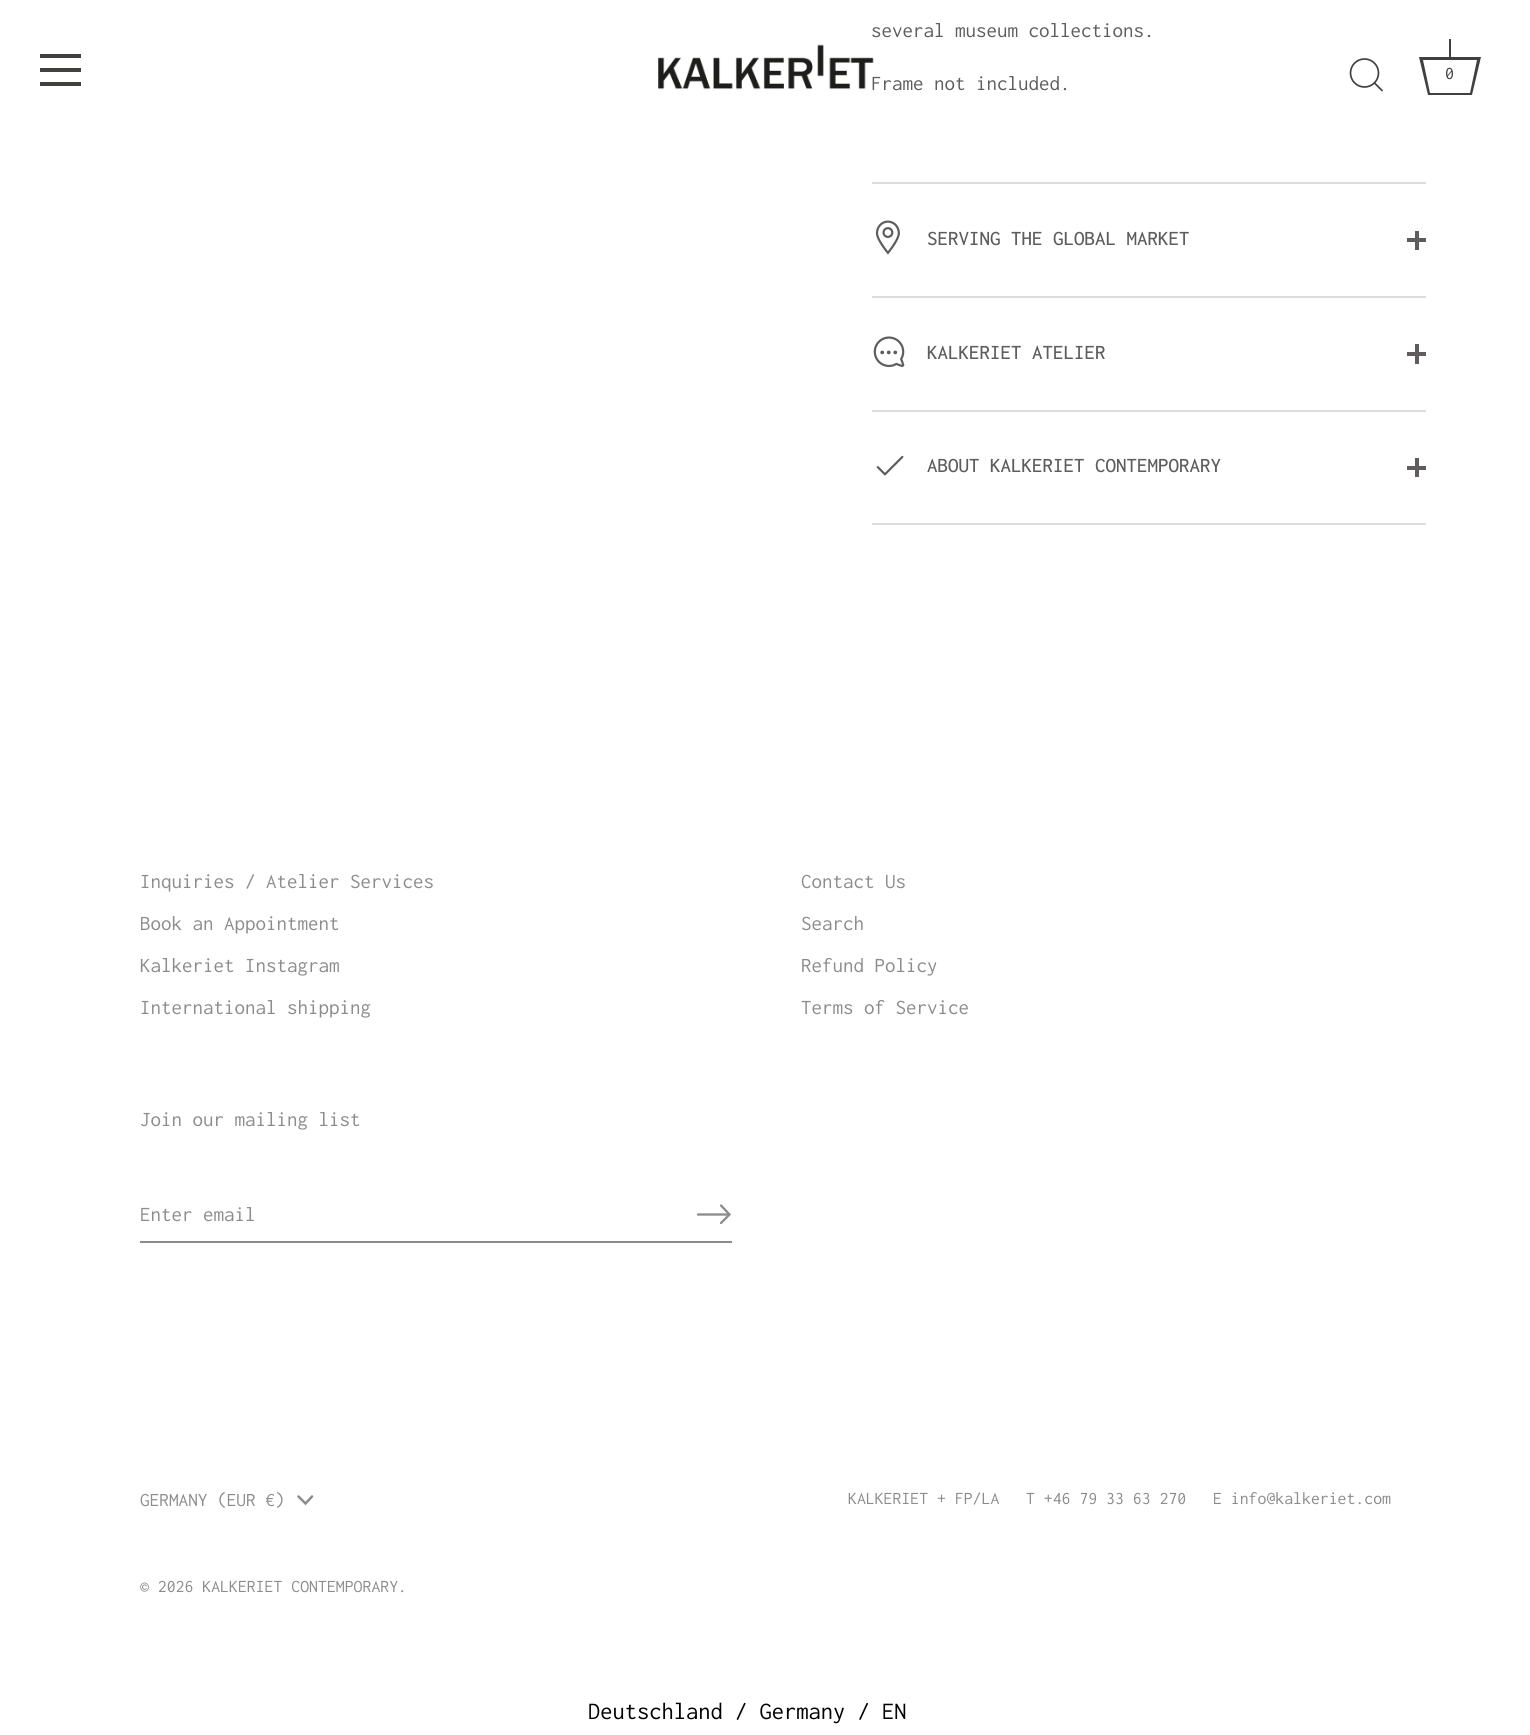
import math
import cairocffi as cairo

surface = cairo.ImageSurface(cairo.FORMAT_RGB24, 1530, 1735)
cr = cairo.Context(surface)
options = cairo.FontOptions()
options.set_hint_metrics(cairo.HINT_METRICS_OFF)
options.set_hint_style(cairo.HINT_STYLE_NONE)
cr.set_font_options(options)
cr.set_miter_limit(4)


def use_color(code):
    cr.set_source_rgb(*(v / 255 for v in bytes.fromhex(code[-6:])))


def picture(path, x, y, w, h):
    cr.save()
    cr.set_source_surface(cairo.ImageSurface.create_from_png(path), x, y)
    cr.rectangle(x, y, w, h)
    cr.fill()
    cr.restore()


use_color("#ffffff")
cr.paint()
cr.select_font_face("Inconsolata")
cr.set_font_size(21)
use_color("#5e5c5c")
cr.move_to(871, 37)
cr.show_text("several museum collections.")
cr.move_to(871, 90)
cr.show_text("Frame not included.")
use_color("#dddddd")
cr.rectangle(872, 182, 554, 2)
cr.fill()
cr.rectangle(872, 296, 554, 2)
cr.fill()
picture("img1.png", 875, 220, 25, 35)
cr.select_font_face("Inconsolata Medium")
use_color("#5e5c5c")
cr.move_to(927, 245)
cr.show_text("SERVING THE GLOBAL MARKET")
cr.rectangle(1415, 231, 4, 19)
cr.fill()
cr.rectangle(1407, 238, 19, 4)
cr.fill()
use_color("#dddddd")
cr.rectangle(872, 410, 554, 2)
cr.fill()
picture("img2.png", 873, 336, 32, 32)
use_color("#5e5c5c")
cr.move_to(927, 359)
cr.show_text("KALKERIET ATELIER")
cr.rectangle(1415, 344, 4, 20)
cr.fill()
cr.rectangle(1407, 352, 19, 4)
cr.fill()
use_color("#dddddd")
cr.rectangle(872, 523, 554, 2)
cr.fill()
picture("img3.png", 876, 455, 28, 21)
use_color("#5e5c5c")
cr.move_to(927, 472)
cr.show_text("ABOUT KALKERIET CONTEMPORARY")
cr.rectangle(1415, 458, 4, 19)
cr.fill()
cr.rectangle(1407, 466, 19, 4)
cr.fill()
use_color("#423f3f")
cr.rectangle(40, 54, 41, 4)
cr.fill()
cr.rectangle(40, 68, 41, 4)
cr.fill()
cr.rectangle(40, 82, 41, 4)
cr.fill()
picture("img4.png", 658, 44, 216, 46)
cr.arc(1364.5, 73, 14, 0, 2 * math.pi)
cr.set_line_width(1.7)
cr.stroke()
cr.new_path()
cr.move_to(1382, 90.5)
cr.line_to(1374.5, 83)
cr.set_line_cap(cairo.LINE_CAP_ROUND)
cr.set_line_join(cairo.LINE_JOIN_ROUND)
cr.stroke()
cr.rectangle(1449, 39, 2, 18)
cr.fill()
cr.new_path()
cr.move_to(1477, 60)
cr.line_to(1470, 93)
cr.line_to(1430, 93)
cr.line_to(1423, 60)
cr.line_to(1477, 60)
cr.move_to(1481, 57)
cr.line_to(1419, 57)
cr.line_to(1428, 95)
cr.line_to(1472, 95)
cr.close_path()
cr.fill()
cr.select_font_face("Inconsolata")
cr.set_font_size(18)
cr.move_to(1445, 79)
cr.show_text("0")
cr.set_font_size(21)
use_color("#8c8c8c")
cr.move_to(140, 888)
cr.show_text("Inquiries / Atelier Services")
cr.move_to(140, 930)
cr.show_text("Book an Appointment")
cr.move_to(140, 972)
cr.show_text("Kalkeriet Instagram")
cr.move_to(140, 1014)
cr.show_text("International shipping")
cr.move_to(801, 888)
cr.show_text("Contact Us")
cr.move_to(801, 930)
cr.show_text("Search")
cr.move_to(801, 972)
cr.show_text("Refund Policy")
cr.move_to(801, 1014)
cr.show_text("Terms of Service")
cr.move_to(140, 1126)
cr.show_text("Join our mailing list")
cr.rectangle(140, 1241, 592, 2)
cr.fill()
cr.move_to(140, 1221)
cr.show_text("Enter email")
cr.new_path()
cr.move_to(721, 1223)
cr.line_to(729.5, 1214.5)
cr.line_to(721, 1205.5)
cr.set_line_width(2.3)
cr.set_line_join(cairo.LINE_JOIN_MITER)
cr.stroke()
cr.new_path()
cr.move_to(728.5, 1214.5)
cr.line_to(698, 1214.5)
cr.set_line_join(cairo.LINE_JOIN_ROUND)
cr.stroke()
cr.set_font_size(19.25)
cr.move_to(140, 1506)
cr.show_text("GERMANY (EUR €)")
cr.new_path()
cr.move_to(298.5, 1496.5)
cr.line_to(305.5, 1503.5)
cr.line_to(312, 1496.5)
cr.set_line_width(2.5)
cr.set_line_join(cairo.LINE_JOIN_MITER)
cr.stroke()
cr.set_font_size(17.8)
cr.move_to(140, 1592)
cr.show_text("© 2026 KALKERIET CONTEMPORARY.")
cr.move_to(848, 1504)
cr.show_text("KALKERIET + FP/LA")
cr.move_to(1026, 1504)
cr.show_text("T +46 79 33 63 270")
cr.move_to(1213, 1504)
cr.show_text("E info@kalkeriet.com")
cr.set_font_size(24.5)
use_color("#000000")
cr.move_to(588, 1719)
cr.show_text("Deutschland / Germany / EN")
surface.write_to_png("result.png")
